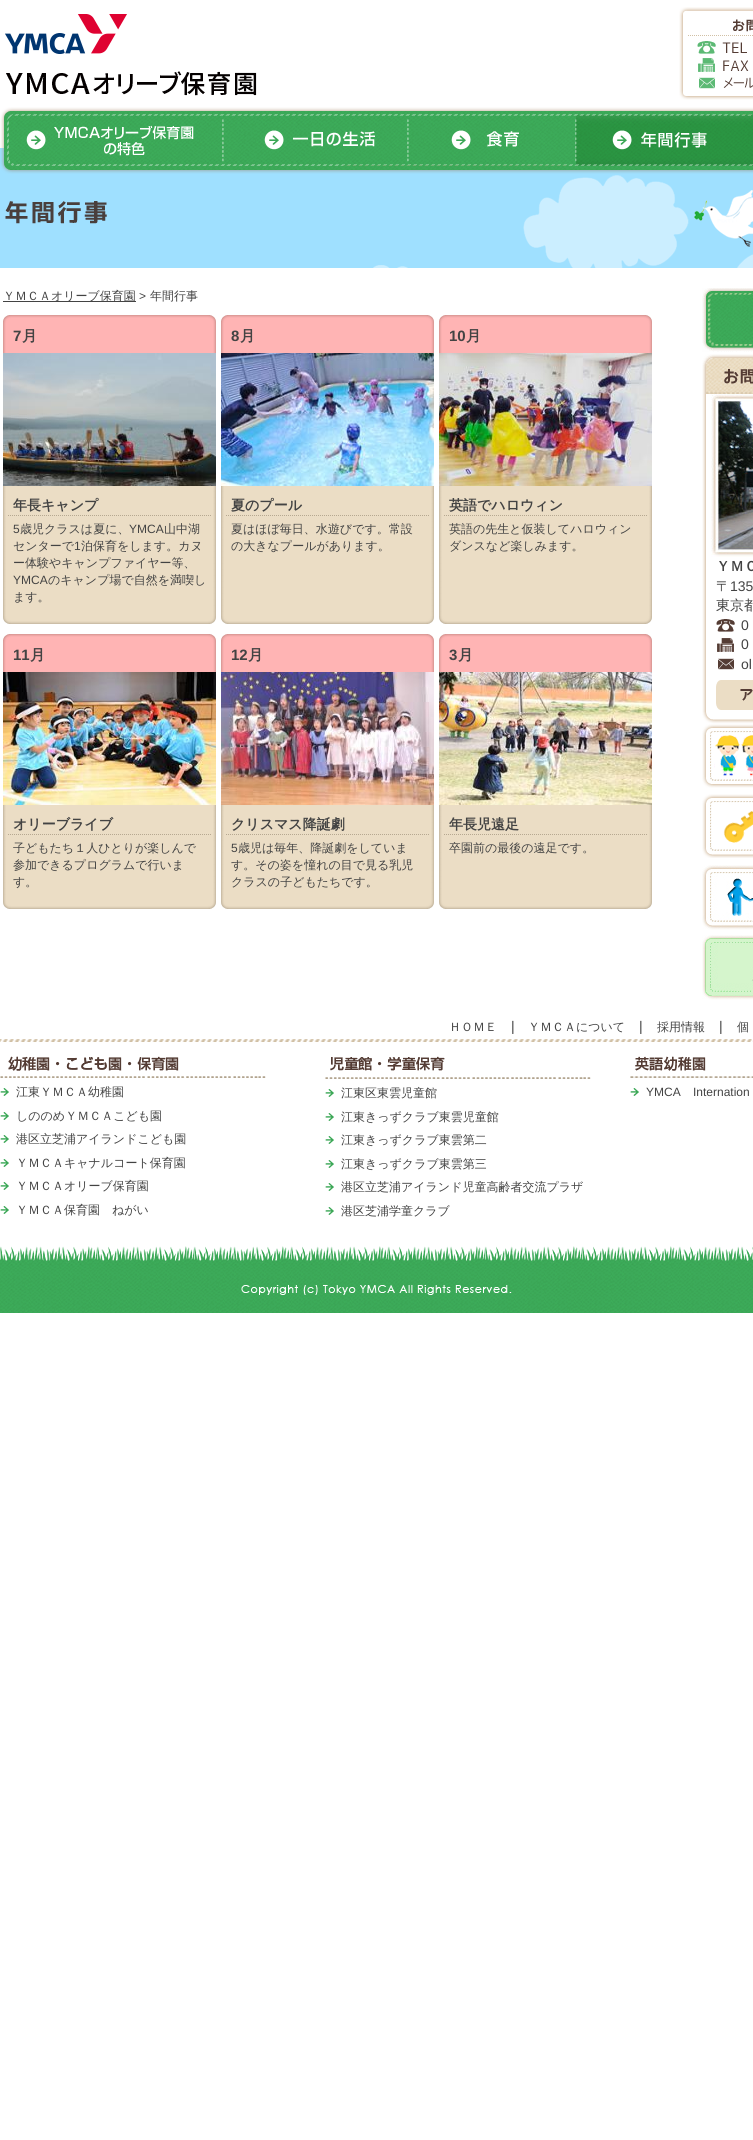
import math
import cairocffi as cairo

surface = cairo.ImageSurface(cairo.FORMAT_RGB24, 753, 2140)
cr = cairo.Context(surface)
options = cairo.FontOptions()
options.set_hint_metrics(cairo.HINT_METRICS_OFF)
options.set_hint_style(cairo.HINT_STYLE_NONE)
cr.set_font_options(options)
cr.set_miter_limit(4)


def use_color(code):
    cr.set_source_rgb(*(v / 255 for v in bytes.fromhex(code[-6:])))


def picture(path, x, y, w, h):
    cr.save()
    cr.set_source_surface(cairo.ImageSurface.create_from_png(path), x, y)
    cr.rectangle(x, y, w, h)
    cr.fill()
    cr.restore()


use_color("#ffffff")
cr.paint()
picture("img1.png", 5, 14, 252, 82)
picture("img2.png", 679, 7, 74, 93)
use_color("#9fe0ff")
cr.rectangle(0, 148, 753, 120)
cr.fill()
picture("img3.png", 0, 107, 223, 67)
picture("img4.png", 223, 107, 185, 67)
picture("img5.png", 408, 107, 168, 67)
picture("img6.png", 576, 107, 177, 67)
picture("img7.png", 373, 175, 380, 93)
picture("img8.png", 5, 201, 102, 23)
use_color("#434343")
cr.rectangle(3, 301, 133, 1)
cr.fill()
cr.select_font_face("WenQuanYi Zen Hei Medium")
cr.set_font_size(12)
cr.move_to(3, 300)
cr.show_text("ＹＭＣＡオリーブ保育園")
cr.select_font_face("Liberation Sans")
cr.move_to(139, 300)
cr.show_text(">")
cr.select_font_face("WenQuanYi Zen Hei Medium")
cr.move_to(150, 300)
cr.show_text("年間行事")
picture("img9.png", 3, 315, 213, 38)
cr.select_font_face("Liberation Sans", cairo.FONT_SLANT_NORMAL, cairo.FONT_WEIGHT_BOLD)
cr.set_font_size(15)
cr.move_to(13, 341)
cr.show_text("7")
cr.select_font_face("WenQuanYi Zen Hei", cairo.FONT_SLANT_NORMAL, cairo.FONT_WEIGHT_BOLD)
cr.move_to(22, 341)
cr.show_text("月")
picture("img10.png", 3, 353, 213, 133)
picture("img11.png", 3, 486, 213, 130)
cr.new_path()
cr.move_to(8, 515.5)
cr.line_to(211, 515.5)
use_color("#b6a891")
cr.set_line_width(1)
cr.set_dash([1, 1])
cr.stroke()
cr.set_font_size(14)
use_color("#434343")
cr.move_to(13, 510)
cr.show_text("年長キャンプ")
cr.select_font_face("Liberation Sans")
cr.set_font_size(12)
cr.move_to(13, 533)
cr.show_text("5")
cr.select_font_face("WenQuanYi Zen Hei Medium")
cr.move_to(20, 533)
cr.show_text("歳児クラスは夏に、")
cr.select_font_face("Liberation Sans")
cr.move_to(129, 533)
cr.show_text("YMCA")
cr.select_font_face("WenQuanYi Zen Hei Medium")
cr.move_to(164, 533)
cr.show_text("山中湖")
cr.move_to(13, 550)
cr.show_text("センターで")
cr.select_font_face("Liberation Sans")
cr.move_to(74, 550)
cr.show_text("1")
cr.select_font_face("WenQuanYi Zen Hei Medium")
cr.move_to(81, 550)
cr.show_text("泊保育をします。カヌ")
cr.move_to(13, 567)
cr.show_text("ー体験やキャンプファイヤー等、")
cr.select_font_face("Liberation Sans")
cr.move_to(13, 584)
cr.show_text("YMCA")
cr.select_font_face("WenQuanYi Zen Hei Medium")
cr.move_to(48, 584)
cr.show_text("のキャンプ場で自然を満喫し")
cr.move_to(13, 601)
cr.show_text("ます。")
picture("img12.png", 3, 616, 213, 8)
picture("img9.png", 221, 315, 213, 38)
cr.select_font_face("Liberation Sans", cairo.FONT_SLANT_NORMAL, cairo.FONT_WEIGHT_BOLD)
cr.set_font_size(15)
cr.move_to(231, 341)
cr.show_text("8")
cr.select_font_face("WenQuanYi Zen Hei", cairo.FONT_SLANT_NORMAL, cairo.FONT_WEIGHT_BOLD)
cr.move_to(240, 341)
cr.show_text("月")
picture("img13.png", 221, 353, 213, 133)
picture("img11.png", 221, 486, 213, 130)
cr.new_path()
cr.move_to(226, 515.5)
cr.line_to(429, 515.5)
use_color("#b6a891")
cr.stroke()
cr.set_font_size(14)
use_color("#434343")
cr.move_to(231, 510)
cr.show_text("夏のプール")
cr.select_font_face("WenQuanYi Zen Hei Medium")
cr.set_font_size(12)
cr.move_to(231, 533)
cr.show_text("夏はほぼ毎日、水遊びです。常設")
cr.move_to(231, 550)
cr.show_text("の大きなプールがあります。")
picture("img12.png", 221, 616, 213, 8)
picture("img9.png", 439, 315, 213, 38)
cr.select_font_face("Liberation Sans", cairo.FONT_SLANT_NORMAL, cairo.FONT_WEIGHT_BOLD)
cr.set_font_size(15)
cr.move_to(449, 341)
cr.show_text("10")
cr.select_font_face("WenQuanYi Zen Hei", cairo.FONT_SLANT_NORMAL, cairo.FONT_WEIGHT_BOLD)
cr.move_to(466, 341)
cr.show_text("月")
picture("img14.png", 439, 353, 213, 133)
picture("img11.png", 439, 486, 213, 130)
cr.new_path()
cr.move_to(444, 515.5)
cr.line_to(647, 515.5)
use_color("#b6a891")
cr.stroke()
cr.set_font_size(14)
use_color("#434343")
cr.move_to(449, 510)
cr.show_text("英語でハロウィン")
cr.select_font_face("WenQuanYi Zen Hei Medium")
cr.set_font_size(12)
cr.move_to(449, 533)
cr.show_text("英語の先生と仮装してハロウィン")
cr.move_to(449, 550)
cr.show_text("ダンスなど楽しみます。")
picture("img12.png", 439, 616, 213, 8)
picture("img9.png", 3, 634, 213, 38)
cr.select_font_face("Liberation Sans", cairo.FONT_SLANT_NORMAL, cairo.FONT_WEIGHT_BOLD)
cr.set_font_size(15)
cr.move_to(13, 660)
cr.show_text("11")
cr.select_font_face("WenQuanYi Zen Hei", cairo.FONT_SLANT_NORMAL, cairo.FONT_WEIGHT_BOLD)
cr.move_to(30, 660)
cr.show_text("月")
picture("img15.png", 3, 672, 213, 133)
picture("img16.png", 3, 805, 213, 96)
cr.new_path()
cr.move_to(8, 834.5)
cr.line_to(211, 834.5)
use_color("#b6a891")
cr.stroke()
cr.set_font_size(14)
use_color("#434343")
cr.move_to(13, 829)
cr.show_text("オリーブライブ")
cr.select_font_face("WenQuanYi Zen Hei Medium")
cr.set_font_size(12)
cr.move_to(13, 852)
cr.show_text("子どもたち１人ひとりが楽しんで")
cr.move_to(13, 869)
cr.show_text("参加できるプログラムで行いま")
cr.move_to(13, 886)
cr.show_text("す。")
picture("img12.png", 3, 901, 213, 8)
picture("img9.png", 221, 634, 213, 38)
cr.select_font_face("Liberation Sans", cairo.FONT_SLANT_NORMAL, cairo.FONT_WEIGHT_BOLD)
cr.set_font_size(15)
cr.move_to(231, 660)
cr.show_text("12")
cr.select_font_face("WenQuanYi Zen Hei", cairo.FONT_SLANT_NORMAL, cairo.FONT_WEIGHT_BOLD)
cr.move_to(248, 660)
cr.show_text("月")
picture("img17.png", 221, 672, 213, 133)
picture("img16.png", 221, 805, 213, 96)
cr.new_path()
cr.move_to(226, 834.5)
cr.line_to(429, 834.5)
use_color("#b6a891")
cr.stroke()
cr.set_font_size(14)
use_color("#434343")
cr.move_to(231, 829)
cr.show_text("クリスマス降誕劇")
cr.select_font_face("Liberation Sans")
cr.set_font_size(12)
cr.move_to(231, 852)
cr.show_text("5")
cr.select_font_face("WenQuanYi Zen Hei Medium")
cr.move_to(238, 852)
cr.show_text("歳児は毎年、降誕劇をしていま")
cr.move_to(231, 869)
cr.show_text("す。その姿を憧れの目で見る乳児")
cr.move_to(231, 886)
cr.show_text("クラスの子どもたちです。")
picture("img12.png", 221, 901, 213, 8)
picture("img9.png", 439, 634, 213, 38)
cr.select_font_face("Liberation Sans", cairo.FONT_SLANT_NORMAL, cairo.FONT_WEIGHT_BOLD)
cr.set_font_size(15)
cr.move_to(449, 660)
cr.show_text("3")
cr.select_font_face("WenQuanYi Zen Hei", cairo.FONT_SLANT_NORMAL, cairo.FONT_WEIGHT_BOLD)
cr.move_to(458, 660)
cr.show_text("月")
picture("img18.png", 439, 672, 213, 133)
picture("img16.png", 439, 805, 213, 96)
cr.new_path()
cr.move_to(444, 834.5)
cr.line_to(647, 834.5)
use_color("#b6a891")
cr.stroke()
cr.set_font_size(14)
use_color("#434343")
cr.move_to(449, 829)
cr.show_text("年長児遠足")
cr.select_font_face("WenQuanYi Zen Hei Medium")
cr.set_font_size(12)
cr.move_to(449, 852)
cr.show_text("卒園前の最後の遠足です。")
picture("img12.png", 439, 901, 213, 8)
picture("img19.png", 702, 288, 51, 64)
picture("img20.png", 702, 394, 4, 318)
picture("img21.png", 702, 353, 51, 41)
picture("img22.png", 711, 394, 42, 163)
cr.select_font_face("WenQuanYi Zen Hei", cairo.FONT_SLANT_NORMAL, cairo.FONT_WEIGHT_BOLD)
cr.set_font_size(14)
cr.move_to(716, 571)
cr.show_text("ＹＭＣ")
cr.select_font_face("WenQuanYi Zen Hei Medium")
cr.move_to(716, 591)
cr.show_text("〒")
cr.select_font_face("Liberation Sans")
cr.move_to(730, 591)
cr.show_text("135")
cr.select_font_face("WenQuanYi Zen Hei Medium")
cr.move_to(716, 610)
cr.show_text("東京都")
picture("img23.png", 716, 619, 19, 13)
cr.select_font_face("Liberation Sans")
cr.move_to(741, 630)
cr.show_text("0")
picture("img24.png", 717, 638, 17, 14)
cr.move_to(741, 649)
cr.show_text("0")
picture("img25.png", 718, 658, 16, 12)
cr.move_to(741, 669)
cr.show_text("ol")
picture("img26.png", 716, 680, 37, 30)
picture("img27.png", 702, 712, 51, 12)
picture("img28.png", 702, 724, 51, 64)
picture("img29.png", 702, 794, 51, 64)
picture("img30.png", 702, 865, 51, 65)
picture("img31.png", 702, 935, 51, 65)
cr.select_font_face("WenQuanYi Zen Hei Medium")
cr.set_font_size(12)
cr.move_to(449, 1031)
cr.show_text("ＨＯＭＥ")
cr.select_font_face("Liberation Sans")
cr.set_font_size(14)
cr.move_to(511, 1031)
cr.show_text("|")
cr.select_font_face("WenQuanYi Zen Hei Medium")
cr.set_font_size(12)
cr.move_to(528, 1031)
cr.show_text("ＹＭＣＡについて")
cr.select_font_face("Liberation Sans")
cr.set_font_size(14)
cr.move_to(639, 1031)
cr.show_text("|")
cr.select_font_face("WenQuanYi Zen Hei Medium")
cr.set_font_size(12)
cr.move_to(657, 1031)
cr.show_text("採用情報")
cr.select_font_face("Liberation Sans")
cr.set_font_size(14)
cr.move_to(719, 1031)
cr.show_text("|")
cr.select_font_face("WenQuanYi Zen Hei Medium")
cr.set_font_size(12)
cr.move_to(737, 1031)
cr.show_text("個")
picture("img32.png", 0, 1039, 753, 3)
picture("img33.png", 8, 1056, 171, 15)
picture("img34.png", 0, 1076, 266, 2)
picture("img35.png", 0, 1088, 9, 8)
cr.move_to(16, 1096)
cr.show_text("江東ＹＭＣＡ幼稚園")
picture("img35.png", 0, 1112, 9, 8)
cr.move_to(16, 1120)
cr.show_text("しののめＹＭＣＡこども園")
picture("img35.png", 0, 1135, 9, 8)
cr.move_to(16, 1143)
cr.show_text("港区立芝浦アイランドこども園")
picture("img35.png", 0, 1159, 9, 8)
cr.move_to(16, 1167)
cr.show_text("ＹＭＣＡキャナルコート保育園")
picture("img35.png", 0, 1182, 9, 8)
cr.move_to(16, 1190)
cr.show_text("ＹＭＣＡオリーブ保育園")
picture("img35.png", 0, 1206, 9, 8)
cr.move_to(16, 1214)
cr.show_text("ＹＭＣＡ保育園　ねがい")
picture("img36.png", 330, 1056, 115, 15)
picture("img34.png", 325, 1077, 266, 2)
picture("img35.png", 325, 1089, 9, 8)
cr.move_to(341, 1097)
cr.show_text("江東区東雲児童館")
picture("img35.png", 325, 1113, 9, 8)
cr.move_to(341, 1121)
cr.show_text("江東きっずクラブ東雲児童館")
picture("img35.png", 325, 1136, 9, 8)
cr.move_to(341, 1144)
cr.show_text("江東きっずクラブ東雲第二")
picture("img35.png", 325, 1160, 9, 8)
cr.move_to(341, 1168)
cr.show_text("江東きっずクラブ東雲第三")
picture("img35.png", 325, 1183, 9, 8)
cr.move_to(341, 1191)
cr.show_text("港区立芝浦アイランド児童高齢者交流プラザ")
picture("img35.png", 325, 1207, 9, 8)
cr.move_to(341, 1215)
cr.show_text("港区芝浦学童クラブ")
picture("img37.png", 635, 1056, 71, 15)
picture("img38.png", 630, 1076, 123, 2)
picture("img35.png", 630, 1088, 9, 8)
cr.select_font_face("Liberation Sans")
cr.move_to(646, 1096)
cr.show_text("YMCA")
cr.move_to(693, 1096)
cr.show_text("Internation")
picture("img39.png", 0, 1246, 753, 67)
picture("img40.png", 241, 1285, 271, 10)
surface.write_to_png("result.png")
